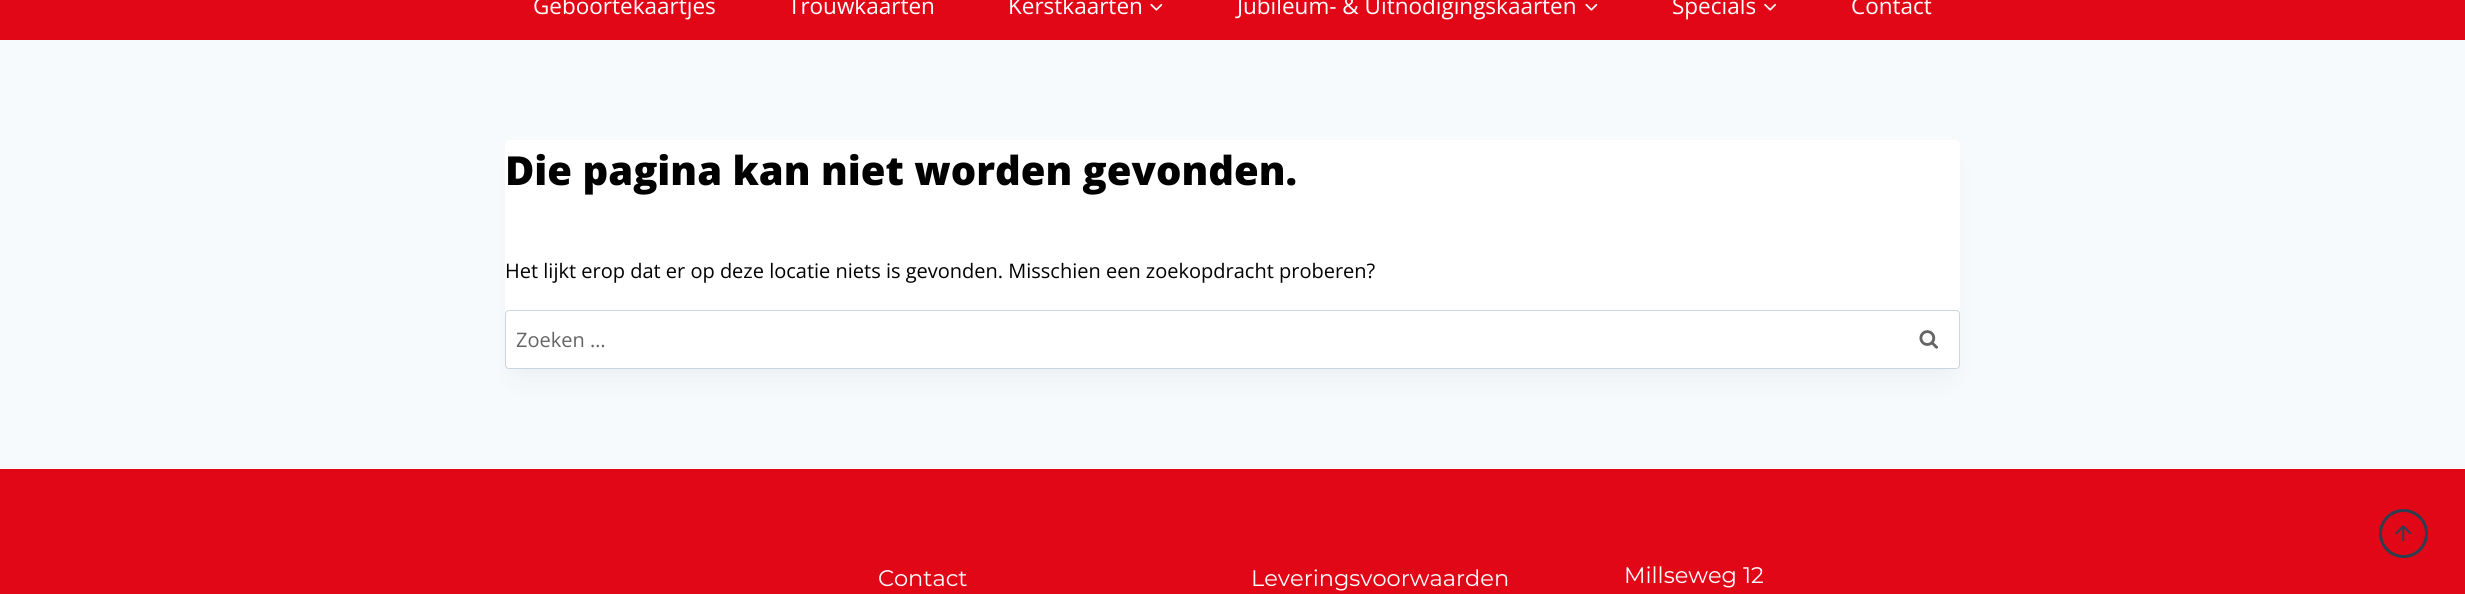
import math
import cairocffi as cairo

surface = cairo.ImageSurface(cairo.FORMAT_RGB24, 2465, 594)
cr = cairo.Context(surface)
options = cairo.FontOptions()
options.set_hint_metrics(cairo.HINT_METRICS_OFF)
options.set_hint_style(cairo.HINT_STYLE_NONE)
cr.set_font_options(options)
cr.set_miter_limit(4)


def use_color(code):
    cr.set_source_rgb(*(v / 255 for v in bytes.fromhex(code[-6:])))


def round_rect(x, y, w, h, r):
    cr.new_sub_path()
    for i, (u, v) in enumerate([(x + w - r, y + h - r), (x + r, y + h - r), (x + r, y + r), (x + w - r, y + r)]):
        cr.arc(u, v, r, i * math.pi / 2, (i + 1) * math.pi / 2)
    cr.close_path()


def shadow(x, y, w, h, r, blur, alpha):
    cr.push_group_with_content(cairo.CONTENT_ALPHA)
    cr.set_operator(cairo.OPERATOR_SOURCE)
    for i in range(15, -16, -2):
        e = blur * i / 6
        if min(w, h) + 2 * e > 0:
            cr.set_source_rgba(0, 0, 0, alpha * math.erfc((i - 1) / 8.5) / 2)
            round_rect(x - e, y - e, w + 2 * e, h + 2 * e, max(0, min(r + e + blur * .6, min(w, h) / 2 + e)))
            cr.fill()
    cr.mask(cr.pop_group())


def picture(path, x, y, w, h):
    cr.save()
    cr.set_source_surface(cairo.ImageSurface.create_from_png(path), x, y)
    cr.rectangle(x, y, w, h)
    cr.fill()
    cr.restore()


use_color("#f7fafc")
cr.paint()
use_color("#e10716")
cr.rectangle(0, 0, 2465, 40)
cr.fill()
cr.select_font_face("Open Sans")
cr.set_font_size(22.5)
use_color("#ffffff")
cr.move_to(533, 14)
cr.show_text("Geboortekaartjes")
cr.move_to(788, 14)
cr.show_text("Trouwkaarten")
cr.move_to(1008, 14)
cr.show_text("Kerstkaarten")
picture("img1.png", 1150, 3, 13, 8)
cr.move_to(1237, 14)
cr.show_text("Jubileum- & Uitnodigingskaarten")
picture("img1.png", 1585, 3, 13, 8)
cr.move_to(1672, 14)
cr.show_text("Specials")
picture("img2.png", 1764, 3, 12, 8)
cr.move_to(1851, 14)
cr.show_text("Contact")
use_color("#000000")
shadow(518, 171, 1430, 204, 0, 15.5, 0.05)
use_color("#ffffff")
round_rect(505, 140, 1455, 229, 5)
cr.fill()
cr.select_font_face("Open Sans ExtraBold")
cr.set_font_size(40)
use_color("#000000")
cr.move_to(505, 185)
cr.show_text("Die pagina kan niet worden gevonden.")
cr.select_font_face("Open Sans")
cr.set_font_size(20)
cr.move_to(505, 278)
cr.show_text("Het lijkt erop dat er op deze locatie niets is gevonden. Misschien een zoekopdracht proberen?")
use_color("#ffffff")
round_rect(505.5, 310.5, 1454, 58, 3.5)
cr.fill_preserve()
use_color("#cbd5e0")
cr.set_line_width(1)
cr.stroke()
use_color("#656565")
cr.move_to(516, 347)
cr.show_text("Zoeken …")
picture("img3.png", 1919, 330, 19, 19)
use_color("#e10716")
cr.rectangle(0, 469, 2465, 125)
cr.fill()
cr.select_font_face("Montserrat Thin")
cr.set_font_size(22.5)
use_color("#ffffff")
cr.move_to(878, 586)
cr.show_text("Contact")
cr.move_to(1251, 586)
cr.show_text("Leveringsvoorwaarden")
cr.move_to(1624, 583)
cr.show_text("Millseweg 12")
cr.new_path()
cr.arc(2403.5, 533.5, 23, 0, 2 * math.pi)
use_color("#2d3e50")
cr.set_line_width(3)
cr.stroke()
picture("img4.png", 2395, 525, 17, 17)
surface.write_to_png("result.png")
